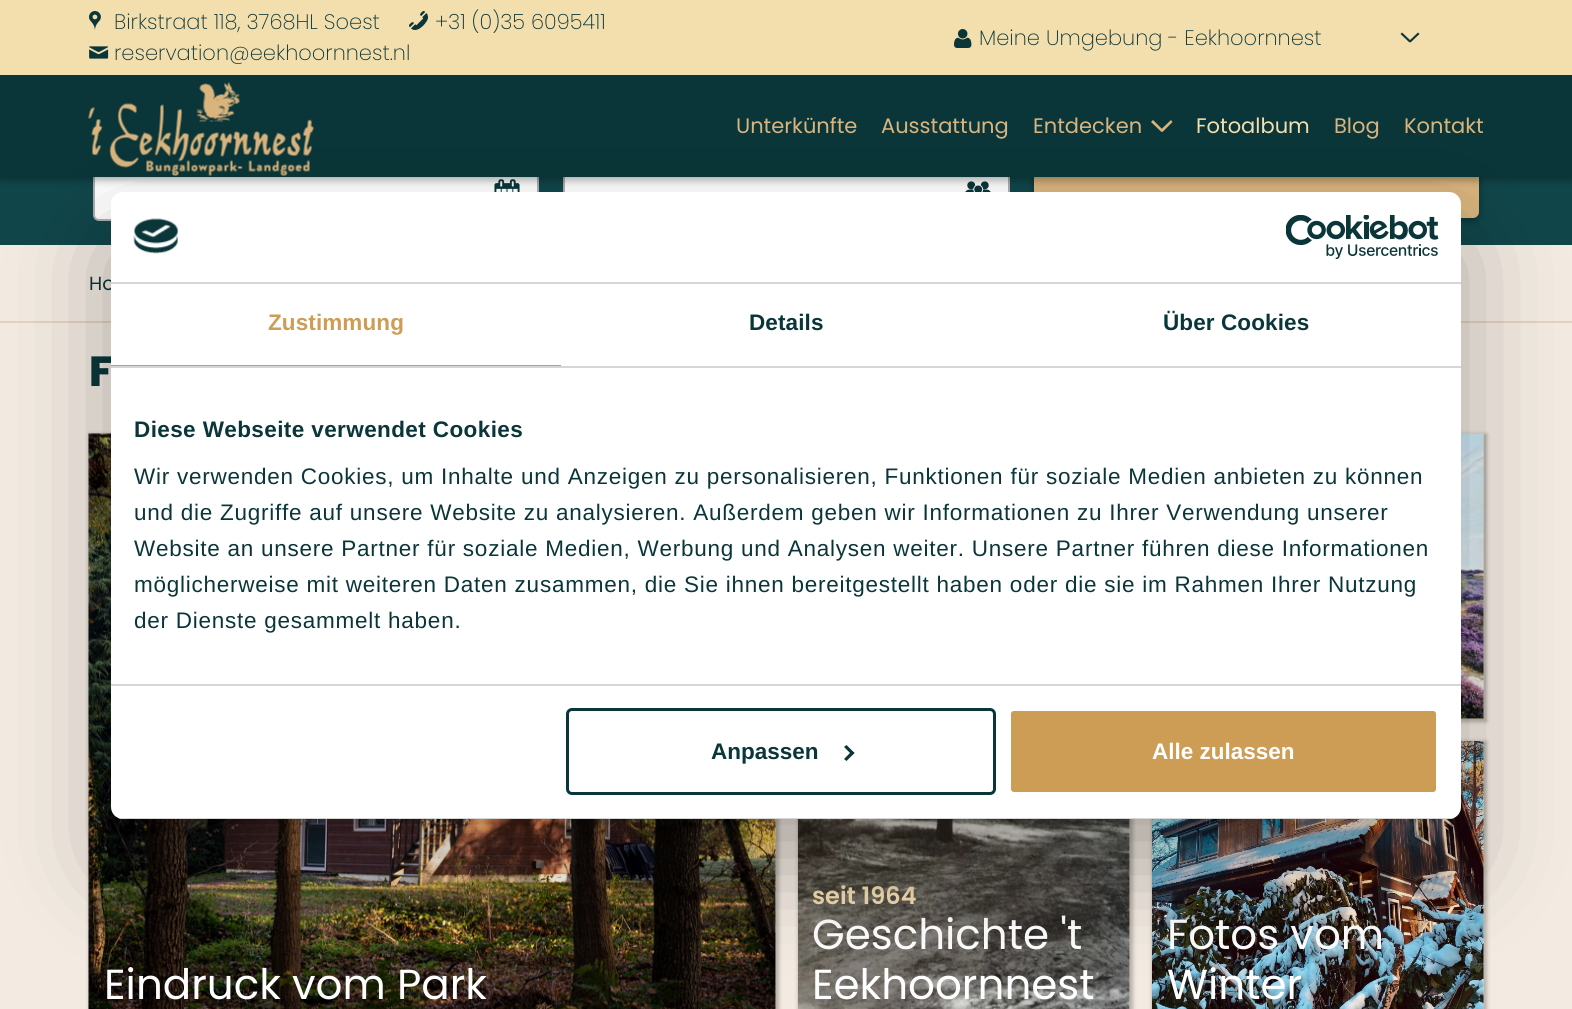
import math
import cairocffi as cairo

surface = cairo.ImageSurface(cairo.FORMAT_RGB24, 1572, 1009)
cr = cairo.Context(surface)
options = cairo.FontOptions()
options.set_hint_metrics(cairo.HINT_METRICS_OFF)
options.set_hint_style(cairo.HINT_STYLE_NONE)
cr.set_font_options(options)
cr.set_miter_limit(4)


def use_color(code):
    cr.set_source_rgb(*(v / 255 for v in bytes.fromhex(code[-6:])))


def spaced_text(x, y, s, letter, word):
    cr.move_to(x, y)
    for ch in s:
        cr.show_text(ch)
        cr.rel_move_to(letter + word * (ch == ' '), 0)


def round_rect(x, y, w, h, r):
    cr.new_sub_path()
    for i, (u, v) in enumerate([(x + w - r, y + h - r), (x + r, y + h - r), (x + r, y + r), (x + w - r, y + r)]):
        cr.arc(u, v, r, i * math.pi / 2, (i + 1) * math.pi / 2)
    cr.close_path()


def shadow(x, y, w, h, r, blur, alpha):
    cr.push_group_with_content(cairo.CONTENT_ALPHA)
    cr.set_operator(cairo.OPERATOR_SOURCE)
    for i in range(15, -16, -2):
        e = blur * i / 6
        if min(w, h) + 2 * e > 0:
            cr.set_source_rgba(0, 0, 0, alpha * math.erfc((i - 1) / 8.5) / 2)
            round_rect(x - e, y - e, w + 2 * e, h + 2 * e, max(0, min(r + e + blur * .6, min(w, h) / 2 + e)))
            cr.fill()
    cr.mask(cr.pop_group())


def picture(path, x, y, w, h):
    cr.save()
    cr.set_source_surface(cairo.ImageSurface.create_from_png(path), x, y)
    cr.rectangle(x, y, w, h)
    cr.fill()
    cr.restore()


use_color("#f3ebe2")
cr.paint()
use_color("#10464a")
cr.rectangle(0, 177, 1572, 68)
cr.fill()
use_color("#ffffff")
round_rect(94, 166, 444, 54, 5)
cr.fill_preserve()
use_color("#b0b0b0")
cr.stroke()
picture("img2.png", 494, 179, 26, 13)
use_color("#ffffff")
cr.rectangle(565, 177, 443, 15)
cr.fill()
cr.rectangle(564, 166, 445, 54)
use_color("#b0b0b0")
cr.stroke()
picture("img3.png", 965, 181, 26, 11)
use_color("#000000")
shadow(1034, 168, 445, 53, 6, 4, 0.33)
use_color("#d9b47d")
round_rect(1035, 166, 443, 51, 5)
cr.fill_preserve()
cr.stroke()
use_color("#000000")
shadow(0, 3, 1572, 177, 0, 4, 0.33)
use_color("#f3deae")
cr.rectangle(0, 0, 1572, 75)
cr.fill()
cr.select_font_face("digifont")
cr.set_font_size(19)
use_color("#0a3639")
cr.move_to(89, 30)
cr.show_text("U")
cr.select_font_face("Poppins ExtraLight")
cr.set_font_size(21)
cr.move_to(114, 29)
cr.show_text("Birkstraat 118, 3768HL Soest")
cr.select_font_face("digifont")
cr.set_font_size(19)
cr.move_to(409, 30)
cr.show_text("b")
cr.select_font_face("Poppins ExtraLight")
cr.set_font_size(21)
cr.move_to(435, 29)
cr.show_text("+31 (0)35 6095411")
cr.select_font_face("digifont")
cr.set_font_size(19)
cr.move_to(89, 62)
cr.show_text("%")
cr.select_font_face("Poppins ExtraLight")
cr.set_font_size(21)
cr.move_to(114, 60)
cr.show_text("reservation@eekhoornnest.nl")
cr.select_font_face("digifont")
cr.set_font_size(19)
cr.move_to(954, 48)
cr.show_text("m")
cr.select_font_face("Poppins ExtraLight")
cr.set_font_size(21)
cr.move_to(979, 45)
cr.show_text("Meine Umgebung - Eekhoornnest")
cr.new_path()
cr.move_to(1409.5, 42.5)
cr.line_to(1400.5, 34)
cr.line_to(1402, 32.5)
cr.line_to(1411, 41)
cr.close_path()
cr.fill()
cr.new_path()
cr.move_to(1419.5, 34)
cr.line_to(1410.5, 42.5)
cr.line_to(1409, 41)
cr.line_to(1418, 32.5)
cr.close_path()
cr.fill()
cr.rectangle(0, 75, 1572, 102)
cr.fill()
picture("img1.png", 88, 82, 226, 94)
cr.select_font_face("Poppins")
use_color("#d9b47d")
cr.move_to(736, 133)
cr.show_text("Unterkünfte")
cr.move_to(881, 133)
cr.show_text("Ausstattung")
cr.move_to(1033, 133)
cr.show_text("Entdecken")
cr.new_path()
cr.move_to(1160.5, 130)
cr.line_to(1171, 120)
cr.line_to(1172.5, 122)
cr.line_to(1162.5, 132)
cr.close_path()
cr.fill()
cr.new_path()
cr.move_to(1153, 120)
cr.line_to(1163, 130)
cr.line_to(1161.5, 132)
cr.line_to(1151, 122)
cr.close_path()
cr.fill()
use_color("#f3deae")
cr.move_to(1196, 133)
cr.show_text("Fotoalbum")
use_color("#d9b47d")
cr.move_to(1334, 133)
cr.show_text("Blog")
cr.move_to(1404, 133)
cr.show_text("Kontakt")
use_color("#e4d2be")
cr.rectangle(0, 321, 1572, 2)
cr.fill()
cr.set_font_size(19)
use_color("#0a3639")
cr.move_to(89, 290)
cr.show_text("Ho")
cr.select_font_face("Poppins ExtraBold")
cr.set_font_size(42)
cr.move_to(89, 386)
cr.show_text("F")
use_color("#000000")
shadow(1152, 434, 335, 288, 0, 2, 0.25)
cr.set_source_rgba(0.953, 0.871, 0.682, 0.5)
cr.rectangle(1461, 434, 23, 285)
cr.fill()
picture("img4.png", 1461, 433, 23, 286)
use_color("#000000")
shadow(89, 434, 690, 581, 0, 2, 0.25)
cr.set_source_rgba(0.953, 0.871, 0.682, 0.5)
cr.rectangle(775, 819, 1, 190)
cr.fill()
picture("img5.png", 88, 433, 688, 576)
cr.select_font_face("Poppins")
use_color("#ffffff")
cr.move_to(104, 999)
cr.show_text("Eindruck vom Park")
use_color("#000000")
shadow(798, 434, 335, 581, 0, 2, 0.25)
cr.set_source_rgba(0.953, 0.871, 0.682, 0.5)
cr.rectangle(1129, 819, 1, 190)
cr.fill()
picture("img6.png", 798, 819, 332, 190)
cr.select_font_face("Poppins SemiBold")
cr.set_font_size(24)
use_color("#f3deae")
cr.move_to(812, 904)
cr.show_text("seit 1964")
cr.select_font_face("Poppins")
cr.set_font_size(42)
use_color("#ffffff")
cr.move_to(812, 949)
cr.show_text("Geschichte 't")
cr.move_to(812, 999)
cr.show_text("Eekhoornnest")
use_color("#000000")
shadow(1152, 741, 335, 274, 0, 2, 0.25)
cr.set_source_rgba(0.953, 0.871, 0.682, 0.5)
cr.rectangle(1483, 741, 1, 268)
cr.fill()
picture("img7.png", 1152, 741, 332, 268)
use_color("#ffffff")
cr.move_to(1167, 949)
cr.show_text("Fotos vom")
cr.move_to(1167, 999)
cr.show_text("Winter")
use_color("#000000")
shadow(111, 240, 1350, 627, 12, 51, 0.3)
use_color("#ffffff")
round_rect(111, 192, 1350, 627, 12)
cr.fill()
use_color("#d6d6d6")
cr.rectangle(111, 282, 1350, 2)
cr.fill()
picture("img8.png", 133, 218, 46, 36)
picture("img9.png", 1286, 215, 153, 44)
cr.rectangle(111, 366, 1350, 2)
cr.fill()
use_color("#cd9d56")
cr.rectangle(111, 365, 450, 1)
cr.fill()
cr.select_font_face("Liberation Sans", cairo.FONT_SLANT_NORMAL, cairo.FONT_WEIGHT_BOLD)
cr.set_font_size(22.5)
spaced_text(268, 330, "Zustimmung", 0.1, 0)
use_color("#0a3639")
spaced_text(749, 330, "Details", 0.1, 0)
spaced_text(1163, 330, "Über Cookies", 0.1, 0)
use_color("#d6d6d6")
cr.rectangle(111, 684, 1350, 2)
cr.fill()
use_color("#0a3639")
spaced_text(134, 437, "Diese Webseite verwendet Cookies", 0.4, 0)
cr.select_font_face("Liberation Sans")
spaced_text(134, 484, "Wir verwenden Cookies, um Inhalte und Anzeigen zu personalisieren, Funktionen für soziale Medien anbieten zu können", 0.75, 0)
spaced_text(134, 520, "und die Zugriffe auf unsere Website zu analysieren. Außerdem geben wir Informationen zu Ihrer Verwendung unserer", 0.75, 0)
spaced_text(134, 556, "Website an unsere Partner für soziale Medien, Werbung und Analysen weiter. Unsere Partner führen diese Informationen", 0.75, 0)
spaced_text(134, 592, "möglicherweise mit weiteren Daten zusammen, die Sie ihnen bereitgestellt haben oder die sie im Rahmen Ihrer Nutzung", 0.75, 0)
spaced_text(134, 628, "der Dienste gesammelt haben.", 0.75, 0)
cr.save()
round_rect(111, 192, 1350, 627, 12)
cr.clip()
use_color("#d6d6d6")
cr.rectangle(111, 818, 1350, 1)
cr.fill()
cr.restore()
round_rect(567.5, 709.5, 427, 84, 4.5)
cr.set_line_width(3)
cr.stroke()
cr.select_font_face("Liberation Sans", cairo.FONT_SLANT_NORMAL, cairo.FONT_WEIGHT_BOLD)
cr.move_to(711, 759)
cr.show_text("Anpassen")
cr.new_path()
cr.move_to(846.5, 745)
cr.line_to(854.5, 753)
cr.line_to(852, 755)
cr.line_to(844, 747)
cr.close_path()
cr.fill()
cr.new_path()
cr.move_to(852, 751)
cr.line_to(854.5, 753)
cr.line_to(846.5, 761)
cr.line_to(844, 759)
cr.close_path()
cr.fill()
use_color("#cd9d56")
round_rect(1009.5, 709.5, 428, 84, 4.5)
cr.fill_preserve()
use_color("#ffffff")
cr.stroke()
cr.move_to(1152, 759)
cr.show_text("Alle zulassen")
surface.write_to_png("result.png")
